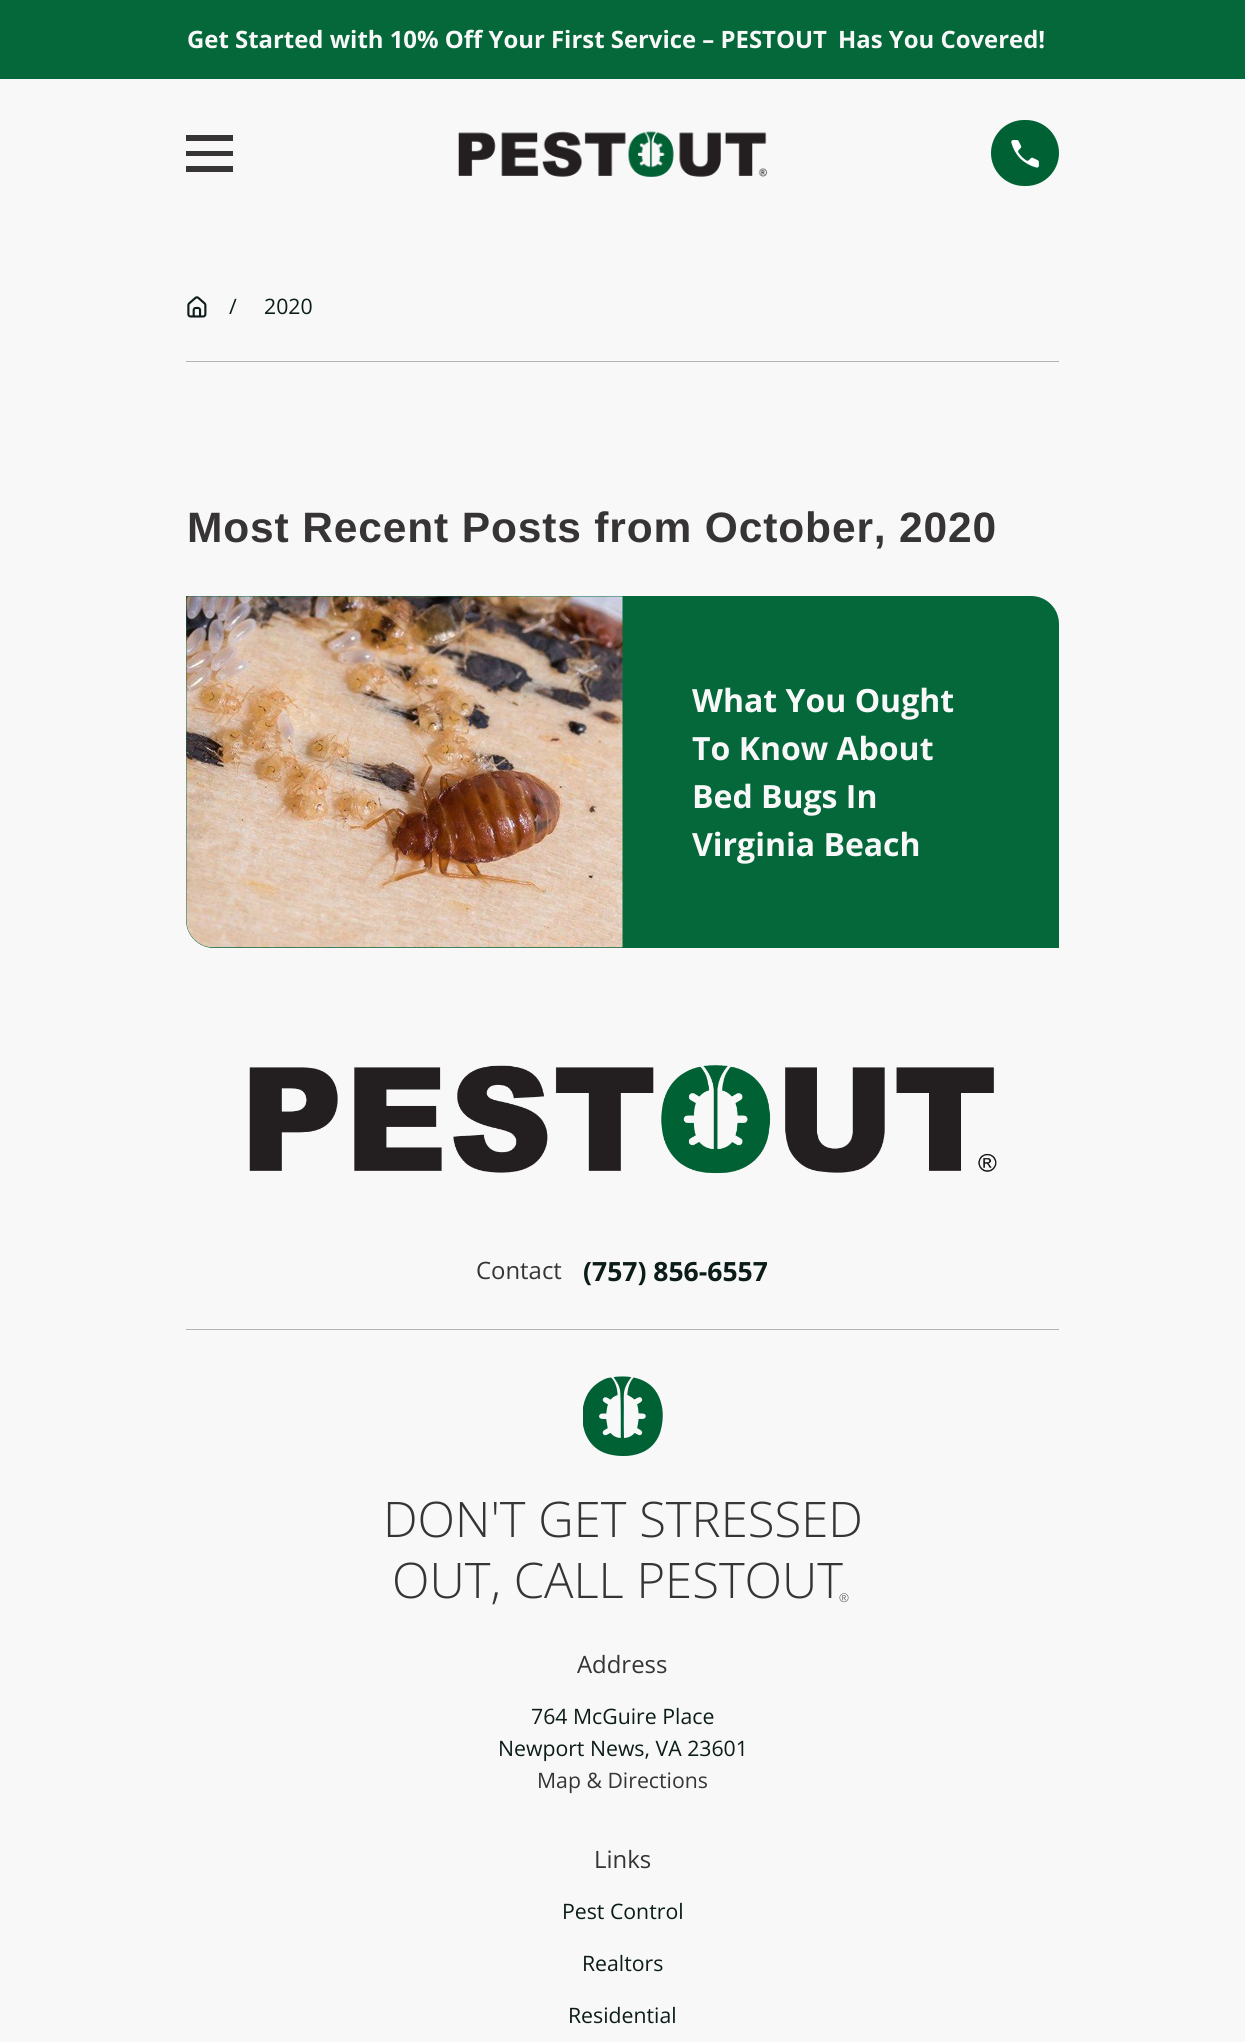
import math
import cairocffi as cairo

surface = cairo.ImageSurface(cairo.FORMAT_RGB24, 1245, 2042)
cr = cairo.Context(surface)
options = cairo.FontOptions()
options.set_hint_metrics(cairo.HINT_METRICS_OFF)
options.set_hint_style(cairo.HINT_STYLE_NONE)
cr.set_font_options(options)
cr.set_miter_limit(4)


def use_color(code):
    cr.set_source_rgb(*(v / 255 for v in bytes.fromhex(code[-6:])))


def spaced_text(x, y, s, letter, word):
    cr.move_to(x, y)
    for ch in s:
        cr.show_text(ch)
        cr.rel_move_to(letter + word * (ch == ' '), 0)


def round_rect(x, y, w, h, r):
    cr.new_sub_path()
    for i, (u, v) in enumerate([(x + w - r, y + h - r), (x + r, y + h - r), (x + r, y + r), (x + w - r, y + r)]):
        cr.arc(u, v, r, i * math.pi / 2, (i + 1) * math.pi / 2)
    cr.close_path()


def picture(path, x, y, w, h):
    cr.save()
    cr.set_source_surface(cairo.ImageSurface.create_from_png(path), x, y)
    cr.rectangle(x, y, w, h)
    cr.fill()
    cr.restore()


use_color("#f8f8f8")
cr.paint()
use_color("#04683a")
cr.rectangle(0, 0, 1245, 79)
cr.fill()
cr.select_font_face("Open Sans", cairo.FONT_SLANT_NORMAL, cairo.FONT_WEIGHT_BOLD)
cr.set_font_size(23.9)
use_color("#f8f8f8")
cr.move_to(187, 48)
cr.show_text("Get Started with 10% Off Your First Service – PESTOUT")
cr.move_to(838, 48)
cr.show_text("Has You Covered!")
use_color("#373435")
cr.new_path()
cr.move_to(186, 135)
cr.line_to(186, 141)
cr.line_to(233, 141)
cr.line_to(233, 135)
cr.close_path()
cr.move_to(186, 151)
cr.line_to(186, 156)
cr.line_to(233, 156)
cr.line_to(233, 151)
cr.close_path()
cr.move_to(186, 166)
cr.line_to(186, 172)
cr.line_to(233, 172)
cr.line_to(233, 166)
cr.close_path()
cr.fill()
picture("img1.png", 458, 131, 310, 46)
use_color("#006134")
round_rect(991, 120, 68, 66, 33)
cr.fill()
picture("img2.png", 1011, 140, 28, 28)
use_color("#b1b6b5")
cr.rectangle(186, 361, 873, 1)
cr.fill()
picture("img3.png", 187, 296, 20, 22)
cr.select_font_face("Open Sans")
cr.set_font_size(21.25)
use_color("#0b1c19")
cr.move_to(229, 314)
cr.show_text("/")
cr.move_to(264, 314)
cr.show_text("2020")
cr.select_font_face("Liberation Sans", cairo.FONT_SLANT_NORMAL, cairo.FONT_WEIGHT_BOLD)
cr.set_font_size(42.5)
use_color("#373435")
spaced_text(187, 542, "Most Recent Posts from October, 2020", 0.85, 0)
use_color("#04683a")
cr.new_path()
cr.move_to(186, 596)
cr.line_to(1031, 596)
cr.curve_to(1046.5, 596, 1059, 608.5, 1059, 624)
cr.line_to(1059, 948)
cr.line_to(214, 948)
cr.curve_to(198.5, 948, 186, 935.5, 186, 920)
cr.close_path()
cr.fill()
picture("img4.png", 186, 596, 437, 352)
cr.select_font_face("Open Sans", cairo.FONT_SLANT_NORMAL, cairo.FONT_WEIGHT_BOLD)
cr.set_font_size(32)
use_color("#f8f8f8")
cr.move_to(692, 712)
cr.show_text("What You Ought")
cr.move_to(692, 760)
cr.show_text("To Know About")
cr.move_to(692, 808)
cr.show_text("Bed Bugs In")
cr.move_to(692, 856)
cr.show_text("Virginia Beach")
use_color("#b1b6b5")
cr.rectangle(186, 1329, 873, 1)
cr.fill()
picture("img5.png", 249, 1065, 748, 109)
cr.select_font_face("Open Sans")
cr.set_font_size(23.9)
use_color("#373435")
cr.move_to(476, 1279)
cr.show_text("Contact")
cr.select_font_face("Open Sans", cairo.FONT_SLANT_NORMAL, cairo.FONT_WEIGHT_BOLD)
cr.set_font_size(26.5)
use_color("#0b1c19")
cr.move_to(583, 1281)
cr.show_text("(757) 856-6557")
picture("img6.png", 583, 1376, 80, 80)
cr.select_font_face("Open Sans Light")
cr.set_font_size(49)
use_color("#373435")
cr.move_to(383, 1537)
cr.show_text("DON'T GET STRESSED")
cr.move_to(392, 1598)
cr.show_text("OUT, CALL PESTOUT")
cr.set_font_size(12)
cr.move_to(839, 1602)
cr.show_text("®")
cr.select_font_face("Open Sans")
cr.set_font_size(23.9)
cr.move_to(577, 1673)
cr.show_text("Address")
cr.set_font_size(21.25)
use_color("#0b1c19")
cr.move_to(531, 1724)
cr.show_text("764 McGuire Place")
cr.move_to(498, 1756)
cr.show_text("Newport News, VA 23601")
use_color("#373435")
cr.move_to(537, 1788)
cr.show_text("Map & Directions")
cr.set_font_size(23.9)
cr.move_to(594, 1868)
cr.show_text("Links")
cr.set_font_size(21.25)
use_color("#0b1c19")
cr.move_to(562, 1919)
cr.show_text("Pest Control")
cr.move_to(582, 1971)
cr.show_text("Realtors")
cr.move_to(568, 2023)
cr.show_text("Residential")
surface.write_to_png("result.png")
